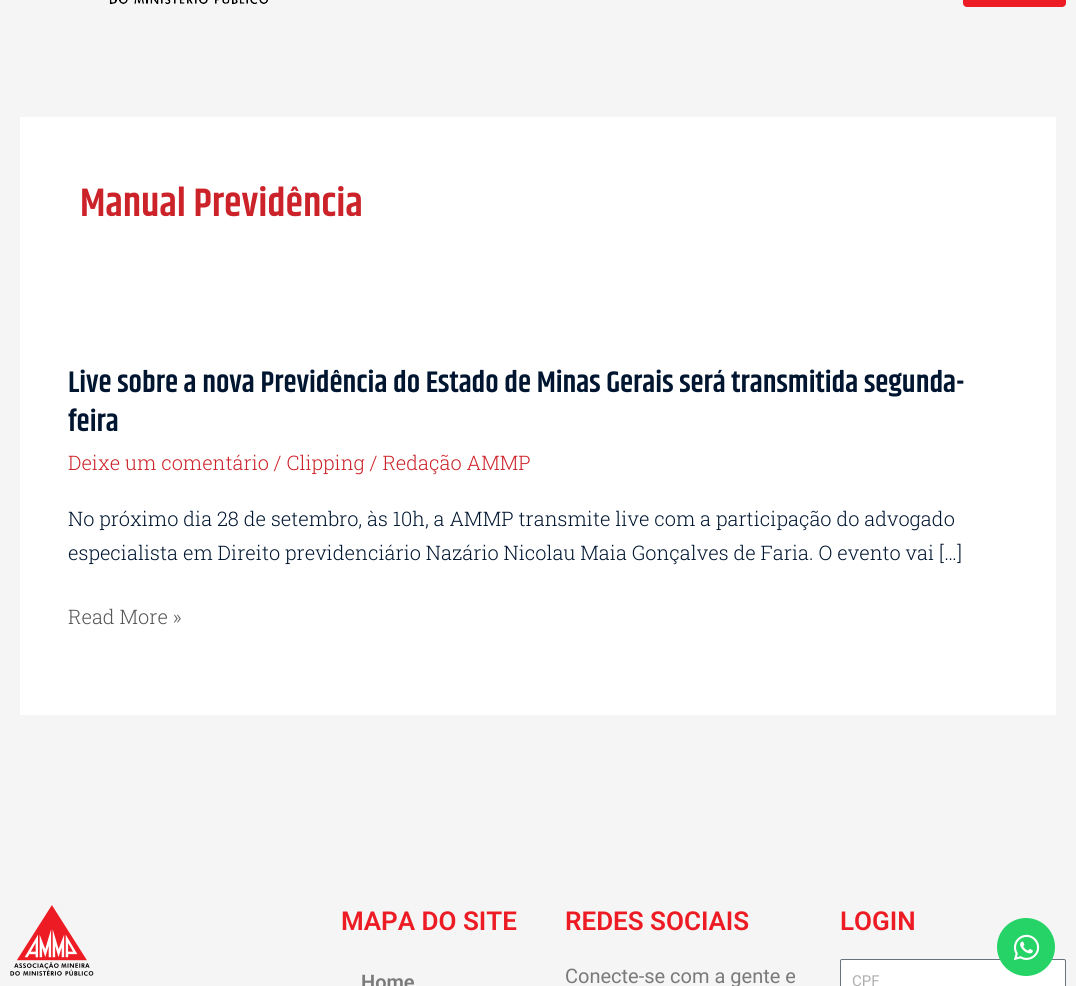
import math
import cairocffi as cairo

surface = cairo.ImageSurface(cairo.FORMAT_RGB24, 1076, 986)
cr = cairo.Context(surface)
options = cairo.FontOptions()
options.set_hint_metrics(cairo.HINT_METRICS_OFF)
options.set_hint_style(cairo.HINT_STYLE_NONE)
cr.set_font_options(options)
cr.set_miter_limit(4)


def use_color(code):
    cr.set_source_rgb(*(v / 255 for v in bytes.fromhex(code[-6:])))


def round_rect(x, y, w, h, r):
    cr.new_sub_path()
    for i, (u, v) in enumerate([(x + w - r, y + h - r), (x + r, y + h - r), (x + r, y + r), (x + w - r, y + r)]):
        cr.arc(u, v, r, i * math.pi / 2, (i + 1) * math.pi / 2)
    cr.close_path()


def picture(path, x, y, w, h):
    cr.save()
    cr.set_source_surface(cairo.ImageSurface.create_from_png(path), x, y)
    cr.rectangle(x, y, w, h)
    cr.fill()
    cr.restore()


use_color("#f5f5f5")
cr.paint()
picture("img1.png", 109, 0, 159, 4)
use_color("#ed1c24")
round_rect(963, -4, 103, 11, 4)
cr.fill()
use_color("#ffffff")
cr.rectangle(20, 117, 1036, 598)
cr.fill()
cr.select_font_face("Khand SemiBold")
cr.set_font_size(40)
use_color("#cc2229")
cr.move_to(80, 216)
cr.show_text("Manual Previdência")
cr.set_font_size(30)
use_color("#001530")
cr.move_to(68, 392)
cr.show_text("Live sobre a nova Previdência do Estado de Minas Gerais será transmitida segunda-")
cr.move_to(68, 431)
cr.show_text("feira")
cr.select_font_face("Roboto Slab Light")
cr.set_font_size(20)
use_color("#cc2229")
cr.move_to(68, 470)
cr.show_text("Deixe um comentário / Clipping / Redação AMMP")
use_color("#001530")
cr.move_to(68, 526)
cr.show_text("No próximo dia 28 de setembro, às 10h, a AMMP transmite live com a participação do advogado")
cr.move_to(68, 560)
cr.show_text("especialista em Direito previdenciário Nazário Nicolau Maia Gonçalves de Faria. O evento vai […]")
use_color("#555555")
cr.move_to(68, 624)
cr.show_text("Read More »")
picture("img2.png", 10, 905, 84, 71)
cr.select_font_face("Roboto SemiBold")
cr.set_font_size(26)
use_color("#ed1c24")
cr.move_to(341, 930)
cr.show_text("MAPA DO SITE")
cr.set_font_size(20)
use_color("#7a7a7a")
cr.move_to(361, 989)
cr.show_text("Home")
cr.set_font_size(26)
use_color("#ed1c24")
cr.move_to(565, 930)
cr.show_text("REDES SOCIAIS")
cr.select_font_face("Roboto")
cr.set_font_size(20)
use_color("#7a7a7a")
cr.move_to(565, 983)
cr.show_text("Conecte-se com a gente e")
cr.select_font_face("Roboto SemiBold")
cr.set_font_size(26)
use_color("#ed1c24")
cr.move_to(840, 930)
cr.show_text("LOGIN")
use_color("#ffffff")
round_rect(840.5, 959.5, 225, 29, 1.5)
cr.fill_preserve()
use_color("#69727d")
cr.set_line_width(1)
cr.stroke()
cr.select_font_face("Roboto")
cr.set_font_size(15)
use_color("#afafaf")
cr.move_to(852, 986)
cr.show_text("CPF")
use_color("#25d366")
cr.new_path()
cr.arc(1026, 947, 29, 0, 2 * math.pi)
cr.fill()
picture("img3.png", 1013, 934, 27, 27)
surface.write_to_png("result.png")
